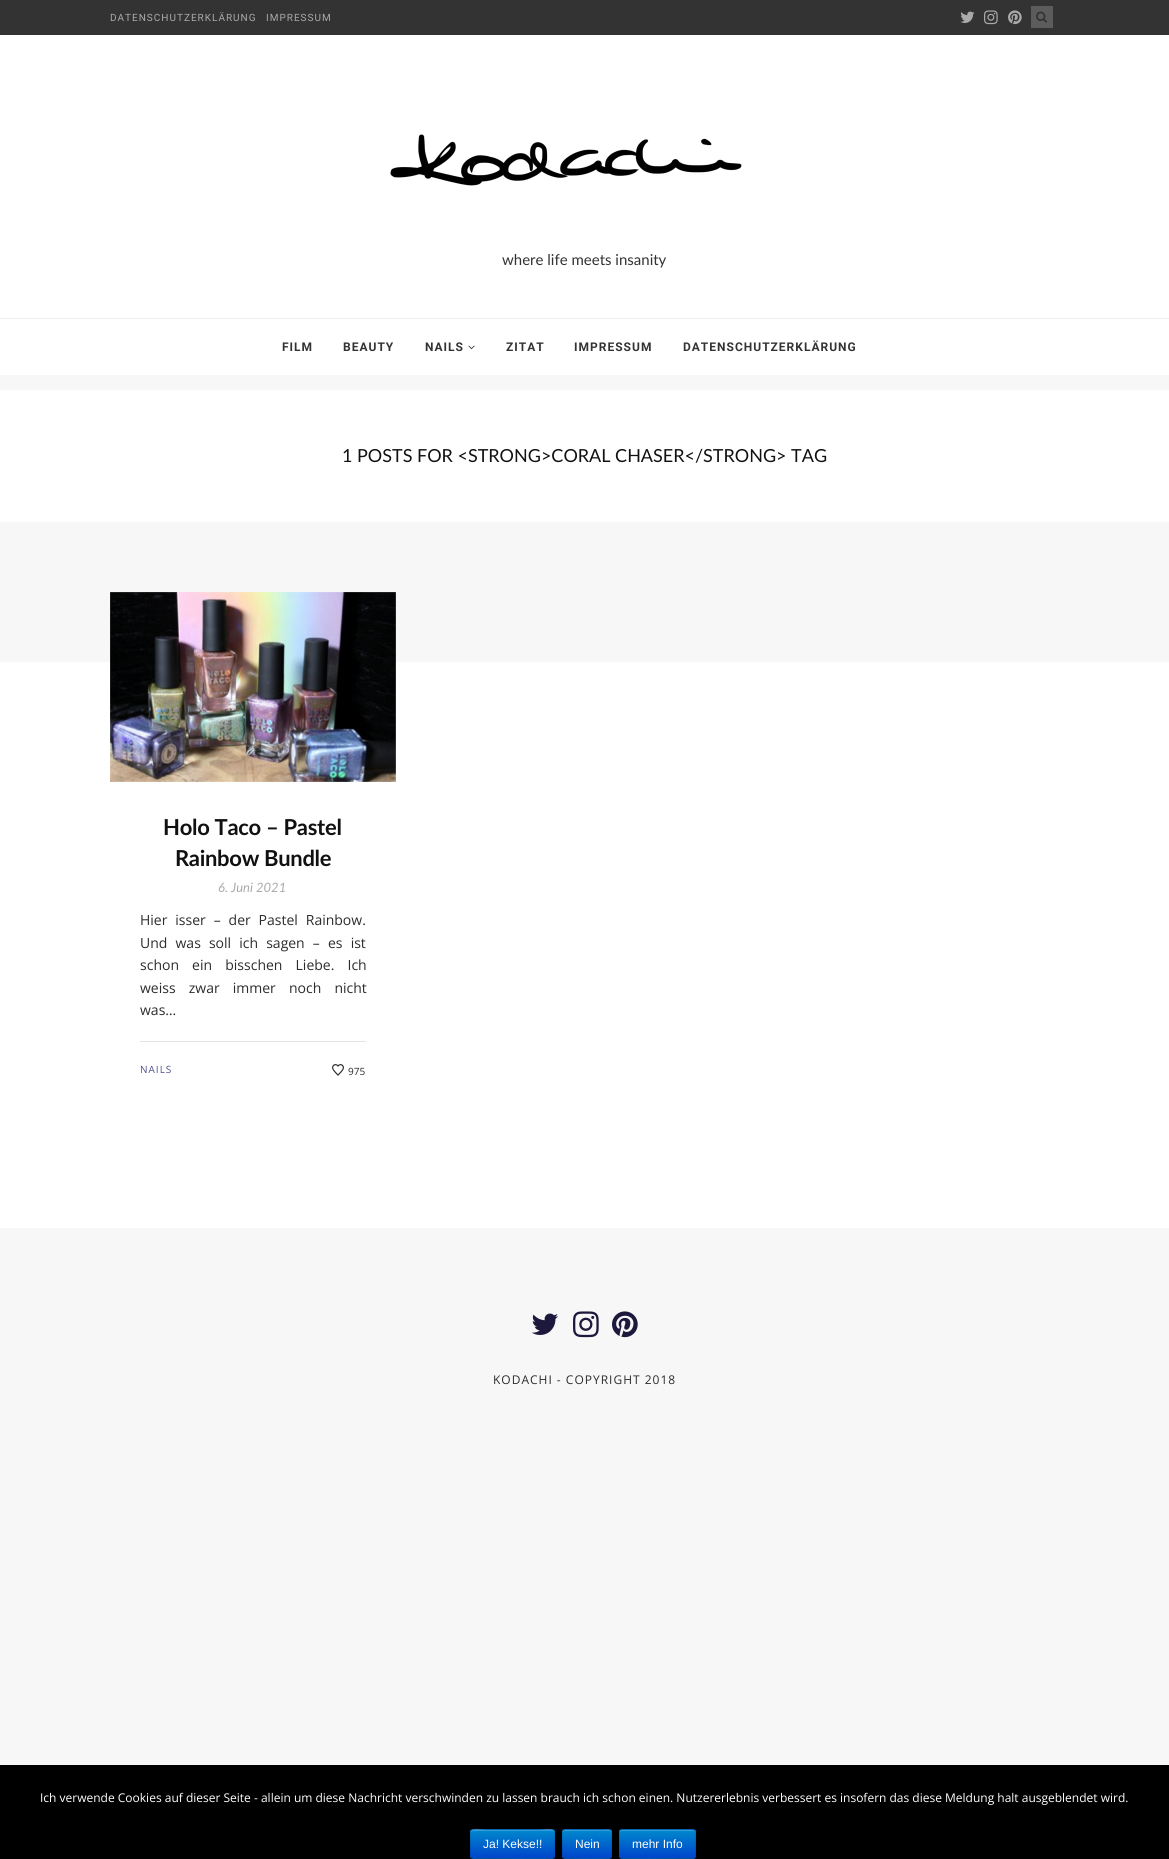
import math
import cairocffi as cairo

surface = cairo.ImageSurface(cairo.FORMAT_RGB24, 1169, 1859)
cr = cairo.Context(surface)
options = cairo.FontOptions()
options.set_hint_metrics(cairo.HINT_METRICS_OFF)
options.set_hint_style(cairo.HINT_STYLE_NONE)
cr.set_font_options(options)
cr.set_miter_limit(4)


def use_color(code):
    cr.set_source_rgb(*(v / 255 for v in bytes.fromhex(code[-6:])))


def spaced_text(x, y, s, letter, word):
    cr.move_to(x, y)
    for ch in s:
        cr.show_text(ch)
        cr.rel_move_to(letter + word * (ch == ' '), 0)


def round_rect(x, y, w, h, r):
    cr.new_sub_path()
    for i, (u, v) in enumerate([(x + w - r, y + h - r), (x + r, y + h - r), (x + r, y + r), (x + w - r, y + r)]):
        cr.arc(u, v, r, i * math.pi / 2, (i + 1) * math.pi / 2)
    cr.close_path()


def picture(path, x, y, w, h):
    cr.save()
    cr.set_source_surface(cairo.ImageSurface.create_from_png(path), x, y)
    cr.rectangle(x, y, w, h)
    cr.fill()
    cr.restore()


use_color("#f7f7f7")
cr.paint()
use_color("#333333")
cr.rectangle(0, 0, 1169, 35)
cr.fill()
cr.select_font_face("Roboto")
cr.set_font_size(10)
use_color("#aaaaaa")
spaced_text(110, 21, "DATENSCHUTZERKLÄRUNG", 1, 0)
spaced_text(266, 21, "IMPRESSUM", 1, 0)
picture("img1.png", 960, 11, 15, 12)
picture("img2.png", 984, 10, 14, 15)
picture("img3.png", 1008, 10, 14, 15)
use_color("#5c5c5c")
cr.rectangle(1031, 6, 22, 22)
cr.fill()
picture("img4.png", 1036, 11, 11, 12)
use_color("#ffffff")
cr.rectangle(0, 35, 1169, 283)
cr.fill()
use_color("#eeeeee")
cr.rectangle(0, 318, 1169, 1)
cr.fill()
picture("img5.png", 390, 134, 352, 52)
cr.select_font_face("Lato")
cr.set_font_size(15)
use_color("#333333")
cr.move_to(502, 265)
cr.show_text("where life meets insanity")
use_color("#ffffff")
cr.rectangle(0, 319, 1169, 56)
cr.fill()
cr.select_font_face("Roboto", cairo.FONT_SLANT_NORMAL, cairo.FONT_WEIGHT_BOLD)
cr.set_font_size(12)
use_color("#333333")
spaced_text(282, 351, "FILM", 1, 0)
spaced_text(343, 351, "BEAUTY", 1, 0)
spaced_text(425, 351, "NAILS", 1, 0)
picture("img6.png", 468, 345, 7, 5)
spaced_text(506, 351, "ZITAT", 1, 0)
spaced_text(574, 351, "IMPRESSUM", 1, 0)
spaced_text(683, 351, "DATENSCHUTZERKLÄRUNG", 1, 0)
use_color("#ffffff")
cr.rectangle(0, 390, 1169, 132)
cr.fill()
cr.select_font_face("Lato")
cr.set_font_size(18)
use_color("#111111")
cr.move_to(342, 462)
cr.show_text("1 POSTS FOR <STRONG>CORAL CHASER</STRONG> TAG")
use_color("#ffffff")
cr.rectangle(0, 662, 1169, 566)
cr.fill()
picture("img7.png", 110, 592, 286, 190)
cr.select_font_face("Lato", cairo.FONT_SLANT_NORMAL, cairo.FONT_WEIGHT_BOLD)
cr.set_font_size(22)
use_color("#111111")
spaced_text(163, 835, "Holo Taco – Pastel", -0.3, 0)
spaced_text(175, 866, "Rainbow Bundle", -0.3, 0)
cr.select_font_face("Lato", cairo.FONT_SLANT_ITALIC)
cr.set_font_size(13)
use_color("#aaaaaa")
cr.move_to(218, 892)
cr.show_text("6. Juni 2021")
cr.select_font_face("Open Sans")
cr.set_font_size(14)
use_color("#2c2c2c")
spaced_text(140, 925, "Hier isser – der Pastel Rainbow.", 0, 4.25)
spaced_text(140, 948, "Und was soll ich sagen – es ist", 0, 4.5)
spaced_text(140, 970, "schon ein bisschen Liebe. Ich", 0, 9.5)
spaced_text(140, 993, "weiss zwar immer noch nicht", 0, 9.5)
cr.move_to(140, 1015)
cr.show_text("was…")
use_color("#e5e5e5")
cr.rectangle(140, 1041, 226, 1)
cr.fill()
cr.set_font_size(10)
use_color("#4f518c")
spaced_text(140, 1073, "NAILS", 1, 0)
picture("img8.png", 332, 1064, 12, 12)
use_color("#2c2c2c")
cr.move_to(348, 1075)
cr.show_text("975")
picture("img9.png", 532, 1313, 26, 22)
picture("img10.png", 573, 1311, 26, 27)
picture("img11.png", 612, 1311, 26, 27)
cr.set_font_size(12)
spaced_text(493, 1384, "KODACHI - COPYRIGHT 2018", 1, 0)
use_color("#000000")
cr.rectangle(0, 1765, 1169, 94)
cr.fill()
use_color("#ffffff")
cr.move_to(40, 1802)
cr.show_text("Ich verwende Cookies auf dieser Seite - allein um diese Nachricht verschwinden zu lassen brauch ich schon einen. Nutzererlebnis verbessert es insofern das diese Meldung halt ausgeblendet wird.")
use_color("#006dcc")
round_rect(470, 1829, 85, 30, 3)
cr.fill()
cr.save()
round_rect(470, 1829, 85, 30, 3)
cr.clip()
gradient = cairo.LinearGradient(513, 1830, 513, 1858)
gradient.add_color_stop_rgba(0, 0, 0.533, 0.8, 1)
gradient.add_color_stop_rgba(1, 0, 0.267, 0.8, 1)
cr.set_source(gradient)
cr.rectangle(470, 1830, 85, 28)
cr.fill()
cr.restore()
cr.set_source_rgba(1, 1, 1, 0.2)
cr.new_path()
cr.move_to(473, 1831)
cr.line_to(552, 1831)
cr.curve_to(553, 1831, 554, 1832, 554, 1833)
cr.curve_to(554, 1826, 542, 1830, 539, 1830)
cr.line_to(486, 1830)
cr.curve_to(483, 1830, 471, 1826, 471, 1833)
cr.curve_to(471, 1832, 472, 1831, 473, 1831)
cr.close_path()
cr.fill()
cr.new_path()
cr.move_to(554, 1858)
cr.line_to(553.5, 1858)
cr.curve_to(551.5, 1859.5, 493.5, 1858.5, 486, 1858.5)
cr.line_to(473, 1858.5)
cr.line_to(471, 1858)
cr.set_source_rgba(0, 0, 0, 0.25)
cr.set_line_width(1)
cr.stroke()
cr.new_path()
cr.move_to(471, 1858)
cr.curve_to(469.5, 1856, 470.5, 1850, 470.5, 1848)
cr.line_to(470.5, 1836)
cr.curve_to(470.5, 1834, 469.5, 1829.5, 473, 1829.5)
cr.line_to(539, 1829.5)
cr.curve_to(557.5, 1829.5, 554.5, 1826.5, 554.5, 1844)
cr.curve_to(554.5, 1846.5, 555.5, 1856, 554, 1858)
cr.set_source_rgba(0, 0, 0, 0.1)
cr.stroke()
cr.select_font_face("Liberation Sans")
use_color("#ffffff")
cr.move_to(483, 1848)
cr.show_text("Ja! Kekse!!")
use_color("#006dcc")
round_rect(562, 1829, 50, 30, 3)
cr.fill()
cr.save()
round_rect(562, 1829, 50, 30, 3)
cr.clip()
gradient = cairo.LinearGradient(587, 1830, 587, 1858)
gradient.add_color_stop_rgba(0, 0, 0.533, 0.8, 1)
gradient.add_color_stop_rgba(1, 0, 0.267, 0.8, 1)
cr.set_source(gradient)
cr.rectangle(562, 1830, 50, 28)
cr.fill()
cr.restore()
cr.set_source_rgba(1, 1, 1, 0.2)
cr.new_path()
cr.move_to(565, 1831)
cr.line_to(609, 1831)
cr.curve_to(610, 1831, 611, 1832, 611, 1833)
cr.curve_to(611, 1828, 606, 1830, 602, 1830)
cr.line_to(572, 1830)
cr.curve_to(568, 1830, 563, 1828, 563, 1833)
cr.curve_to(563, 1832, 564, 1831, 565, 1831)
cr.close_path()
cr.fill()
cr.new_path()
cr.move_to(611, 1858)
cr.line_to(609, 1858.5)
cr.curve_to(605, 1859, 564.5, 1859, 563, 1858)
cr.set_source_rgba(0, 0, 0, 0.25)
cr.stroke()
cr.new_path()
cr.move_to(563, 1858)
cr.curve_to(561.5, 1856, 562.5, 1846.5, 562.5, 1844)
cr.curve_to(562.5, 1829, 559, 1829.5, 572.5, 1829.5)
cr.line_to(601.5, 1829.5)
cr.curve_to(615, 1829.5, 611.5, 1829, 611.5, 1844)
cr.curve_to(611.5, 1846.5, 612.5, 1856, 611, 1858)
cr.set_source_rgba(0, 0, 0, 0.1)
cr.stroke()
use_color("#ffffff")
cr.move_to(575, 1848)
cr.show_text("Nein")
use_color("#006dcc")
round_rect(619, 1829, 77, 30, 3)
cr.fill()
cr.save()
round_rect(619, 1829, 77, 30, 3)
cr.clip()
gradient = cairo.LinearGradient(658, 1830, 658, 1858)
gradient.add_color_stop_rgba(0, 0, 0.533, 0.8, 1)
gradient.add_color_stop_rgba(1, 0, 0.267, 0.8, 1)
cr.set_source(gradient)
cr.rectangle(619, 1830, 77, 28)
cr.fill()
cr.restore()
cr.set_source_rgba(1, 1, 1, 0.2)
cr.set_fill_rule(cairo.FILL_RULE_EVEN_ODD)
cr.new_path()
cr.move_to(622, 1831)
cr.line_to(693, 1831)
cr.line_to(695, 1832)
cr.line_to(694, 1831)
cr.line_to(693, 1830)
cr.line_to(622, 1830)
cr.curve_to(620, 1830, 620, 1831, 620, 1832)
cr.curve_to(620, 1832, 621, 1831, 622, 1831)
cr.close_path()
cr.move_to(620, 1857)
cr.line_to(620, 1853)
cr.close_path()
cr.fill()
cr.new_path()
cr.move_to(695, 1858)
cr.line_to(693, 1858.5)
cr.line_to(681, 1858.5)
cr.curve_to(674.5, 1858.5, 622.5, 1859.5, 620.5, 1858)
cr.line_to(620, 1858)
cr.set_source_rgba(0, 0, 0, 0.25)
cr.stroke()
cr.new_path()
cr.move_to(620, 1858)
cr.curve_to(618.5, 1856, 619.5, 1846.5, 619.5, 1844)
cr.curve_to(619.5, 1827, 616.5, 1829.5, 634, 1829.5)
cr.line_to(681, 1829.5)
cr.curve_to(698.5, 1829.5, 695.5, 1827, 695.5, 1844)
cr.curve_to(695.5, 1846.5, 696.5, 1856, 695, 1858)
cr.set_source_rgba(0, 0, 0, 0.1)
cr.stroke()
use_color("#ffffff")
cr.move_to(632, 1848)
cr.show_text("mehr Info")
surface.write_to_png("result.png")
